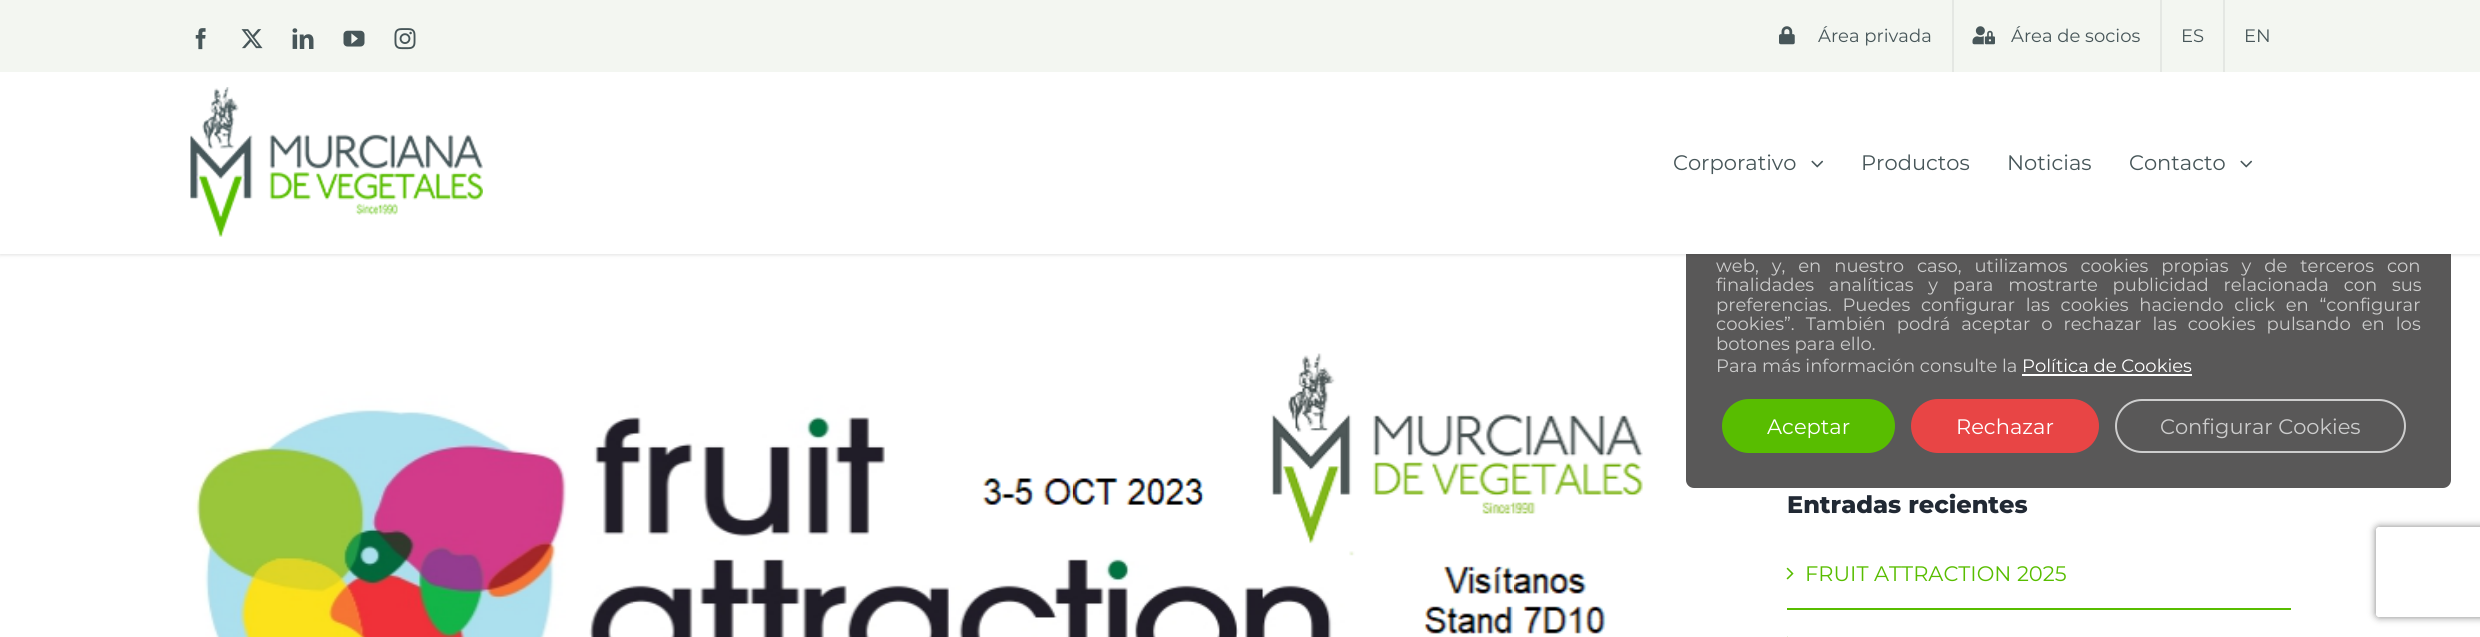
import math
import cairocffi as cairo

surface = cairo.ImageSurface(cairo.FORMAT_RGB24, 2480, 637)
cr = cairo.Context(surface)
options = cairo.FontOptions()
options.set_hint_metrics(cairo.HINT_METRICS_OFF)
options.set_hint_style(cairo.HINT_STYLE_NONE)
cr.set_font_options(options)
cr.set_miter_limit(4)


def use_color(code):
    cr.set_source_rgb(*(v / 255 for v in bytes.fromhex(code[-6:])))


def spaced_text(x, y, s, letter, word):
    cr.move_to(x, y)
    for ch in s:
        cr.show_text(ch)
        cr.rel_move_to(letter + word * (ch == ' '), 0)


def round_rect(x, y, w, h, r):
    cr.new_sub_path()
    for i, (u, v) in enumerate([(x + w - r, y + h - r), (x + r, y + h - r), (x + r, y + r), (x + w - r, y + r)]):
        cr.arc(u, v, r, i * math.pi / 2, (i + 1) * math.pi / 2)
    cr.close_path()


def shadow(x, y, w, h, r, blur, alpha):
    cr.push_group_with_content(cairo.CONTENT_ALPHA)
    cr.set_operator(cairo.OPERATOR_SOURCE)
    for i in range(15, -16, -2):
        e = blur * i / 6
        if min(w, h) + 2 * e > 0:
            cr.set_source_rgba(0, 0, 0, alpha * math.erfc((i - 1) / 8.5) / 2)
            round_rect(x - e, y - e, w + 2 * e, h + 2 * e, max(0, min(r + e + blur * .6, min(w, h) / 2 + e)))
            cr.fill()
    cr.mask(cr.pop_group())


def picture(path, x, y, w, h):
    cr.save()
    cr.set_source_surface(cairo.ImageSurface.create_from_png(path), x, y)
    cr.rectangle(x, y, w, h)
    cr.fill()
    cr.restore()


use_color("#ffffff")
cr.paint()
use_color("#595858")
round_rect(1686, 147, 765, 341, 8)
cr.fill()
use_color("#000000")
shadow(0, 2, 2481, 253, 0, 2, 0.12)
use_color("#f3f6f1")
cr.rectangle(0, 0, 2480, 72)
cr.fill()
picture("img1.png", 195, 28, 11, 22)
picture("img2.png", 241, 29, 22, 20)
picture("img3.png", 292, 28, 22, 21)
picture("img4.png", 343, 30, 22, 17)
picture("img5.png", 394, 28, 22, 22)
picture("img6.png", 1779, 26, 16, 19)
cr.select_font_face("Montserrat")
cr.set_font_size(18)
use_color("#475659")
cr.move_to(1818, 42)
cr.show_text("Área privada")
use_color("#e4e7e3")
cr.rectangle(1952, 0, 2, 72)
cr.fill()
picture("img7.png", 1972, 26, 23, 19)
use_color("#475659")
cr.move_to(2011, 42)
cr.show_text("Área de socios")
use_color("#e4e7e3")
cr.rectangle(2160, 0, 2, 72)
cr.fill()
use_color("#475659")
cr.move_to(2181, 42)
cr.show_text("ES")
use_color("#e4e7e3")
cr.rectangle(2223, 0, 2, 72)
cr.fill()
use_color("#475659")
cr.move_to(2244, 42)
cr.show_text("EN")
use_color("#ffffff")
cr.rectangle(0, 72, 2480, 182)
cr.fill()
picture("img8.png", 190, 87, 293, 150)
cr.set_font_size(21)
use_color("#475659")
cr.move_to(1673, 170)
cr.show_text("Corporativo")
picture("img9.png", 1811, 160, 13, 8)
cr.move_to(1861, 170)
cr.show_text("Productos")
cr.move_to(2007, 170)
cr.show_text("Noticias")
cr.move_to(2129, 170)
cr.show_text("Contacto")
picture("img9.png", 2240, 160, 13, 8)
picture("img10.png", 193, 353, 1450, 284)
cr.select_font_face("Montserrat ExtraBold")
cr.set_font_size(24)
use_color("#212934")
cr.move_to(1787, 513)
cr.show_text("Entradas recientes")
use_color("#58bd00")
cr.rectangle(1787, 608, 504, 2)
cr.fill()
picture("img11.png", 1786, 567, 8, 13)
cr.select_font_face("Montserrat")
cr.set_font_size(21)
cr.move_to(1805, 581)
cr.show_text("FRUIT ATTRACTION 2025")
use_color("#e6f5d9")
cr.rectangle(1787, 636, 1, 1)
cr.fill()
cr.set_font_size(18)
use_color("#cccccc")
spaced_text(1716, 272, "web, y, en nuestro caso, utilizamos cookies propias y de terceros con", 0, 8.25)
spaced_text(1716, 291, "finalidades analíticas y para mostrarte publicidad relacionada con sus", 0, 10)
spaced_text(1716, 311, "preferencias. Puedes configurar las cookies haciendo click en “configurar", 0, 6)
spaced_text(1716, 330, "cookies”. También podrá aceptar o rechazar las cookies pulsando en los", 0, 6.25)
cr.move_to(1716, 350)
cr.show_text("botones para ello.")
cr.move_to(1716, 372)
cr.show_text("Para más información consulte la")
use_color("#ffffff")
cr.move_to(2022, 372)
cr.show_text("Política de Cookies")
cr.rectangle(2022, 374, 170, 2)
cr.fill()
use_color("#58bd00")
round_rect(1722, 399, 173, 54, 27)
cr.fill()
cr.set_font_size(21)
use_color("#ffffff")
cr.move_to(1767, 434)
cr.show_text("Aceptar")
use_color("#e84545")
round_rect(1911, 399, 188, 54, 27)
cr.fill()
use_color("#ffffff")
cr.move_to(1956, 434)
cr.show_text("Rechazar")
round_rect(2116, 400, 289, 52, 26)
use_color("#cdcdcd")
cr.stroke()
use_color("#cccccc")
cr.move_to(2160, 434)
cr.show_text("Configurar Cookies")
cr.save()
cr.set_fill_rule(cairo.FILL_RULE_EVEN_ODD)
cr.new_path()
cr.move_to(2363, 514)
cr.line_to(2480, 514)
cr.line_to(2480, 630)
cr.line_to(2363, 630)
cr.close_path()
cr.move_to(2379, 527)
cr.line_to(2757, 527)
cr.curve_to(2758.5, 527, 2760, 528.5, 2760, 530)
cr.line_to(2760, 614)
cr.curve_to(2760, 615.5, 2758.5, 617, 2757, 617)
cr.line_to(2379, 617)
cr.curve_to(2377.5, 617, 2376, 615.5, 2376, 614)
cr.line_to(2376, 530)
cr.curve_to(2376, 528.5, 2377.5, 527, 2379, 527)
cr.close_path()
cr.clip()
use_color("#808080")
shadow(2376, 527, 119, 90, 3, 4, 1)
cr.restore()
surface.write_to_png("result.png")
